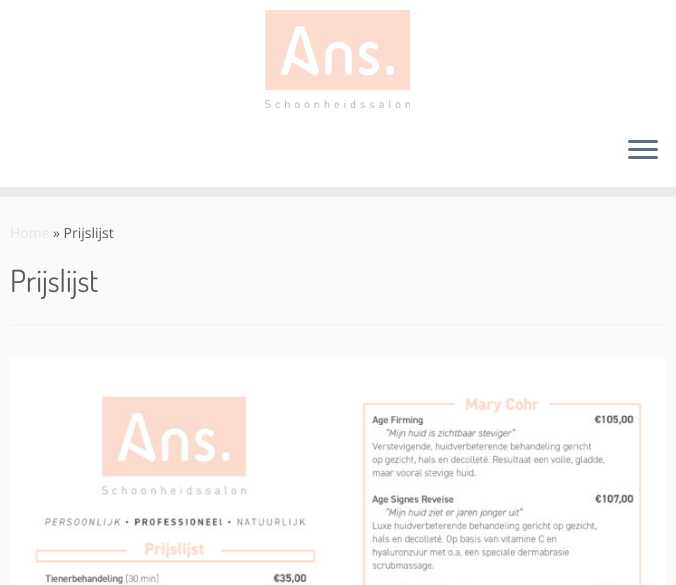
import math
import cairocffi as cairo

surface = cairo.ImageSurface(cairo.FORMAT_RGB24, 676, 585)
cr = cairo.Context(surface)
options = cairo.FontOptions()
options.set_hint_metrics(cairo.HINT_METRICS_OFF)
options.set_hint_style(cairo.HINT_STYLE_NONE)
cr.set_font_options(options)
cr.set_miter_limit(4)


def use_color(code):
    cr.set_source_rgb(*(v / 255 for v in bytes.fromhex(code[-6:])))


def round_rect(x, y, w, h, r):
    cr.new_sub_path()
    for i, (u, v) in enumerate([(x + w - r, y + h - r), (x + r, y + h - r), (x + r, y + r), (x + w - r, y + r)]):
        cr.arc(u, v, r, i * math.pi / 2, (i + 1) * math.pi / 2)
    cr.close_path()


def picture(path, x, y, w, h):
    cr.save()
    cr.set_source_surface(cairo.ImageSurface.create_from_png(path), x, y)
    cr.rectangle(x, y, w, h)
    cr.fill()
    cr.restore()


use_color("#fafafa")
cr.paint()
use_color("#ffffff")
cr.rectangle(0, 0, 676, 187)
cr.fill()
use_color("#e9eaee")
cr.rectangle(0, 187, 676, 10)
cr.fill()
picture("img1.png", 265, 10, 145, 98)
use_color("#5f6f81")
round_rect(628, 140, 30, 3, 1.5)
cr.fill()
round_rect(628, 148, 30, 3, 1.5)
cr.fill()
round_rect(628, 156, 30, 3, 1.5)
cr.fill()
cr.select_font_face("Open Sans")
cr.set_font_size(14)
use_color("#e4e4e4")
cr.move_to(10, 238)
cr.show_text("Home")
use_color("#5a5a5a")
cr.move_to(53, 238)
cr.show_text("» Prijslijst")
cr.select_font_face("Dosis")
cr.set_font_size(30.5)
cr.move_to(10, 292)
cr.show_text("Prijslijst")
use_color("#eeeeee")
cr.rectangle(10, 325, 656, 1)
cr.fill()
use_color("#ffffff")
cr.rectangle(10, 326, 656, 1)
cr.fill()
picture("img2.png", 10, 357, 656, 228)
surface.write_to_png("result.png")
